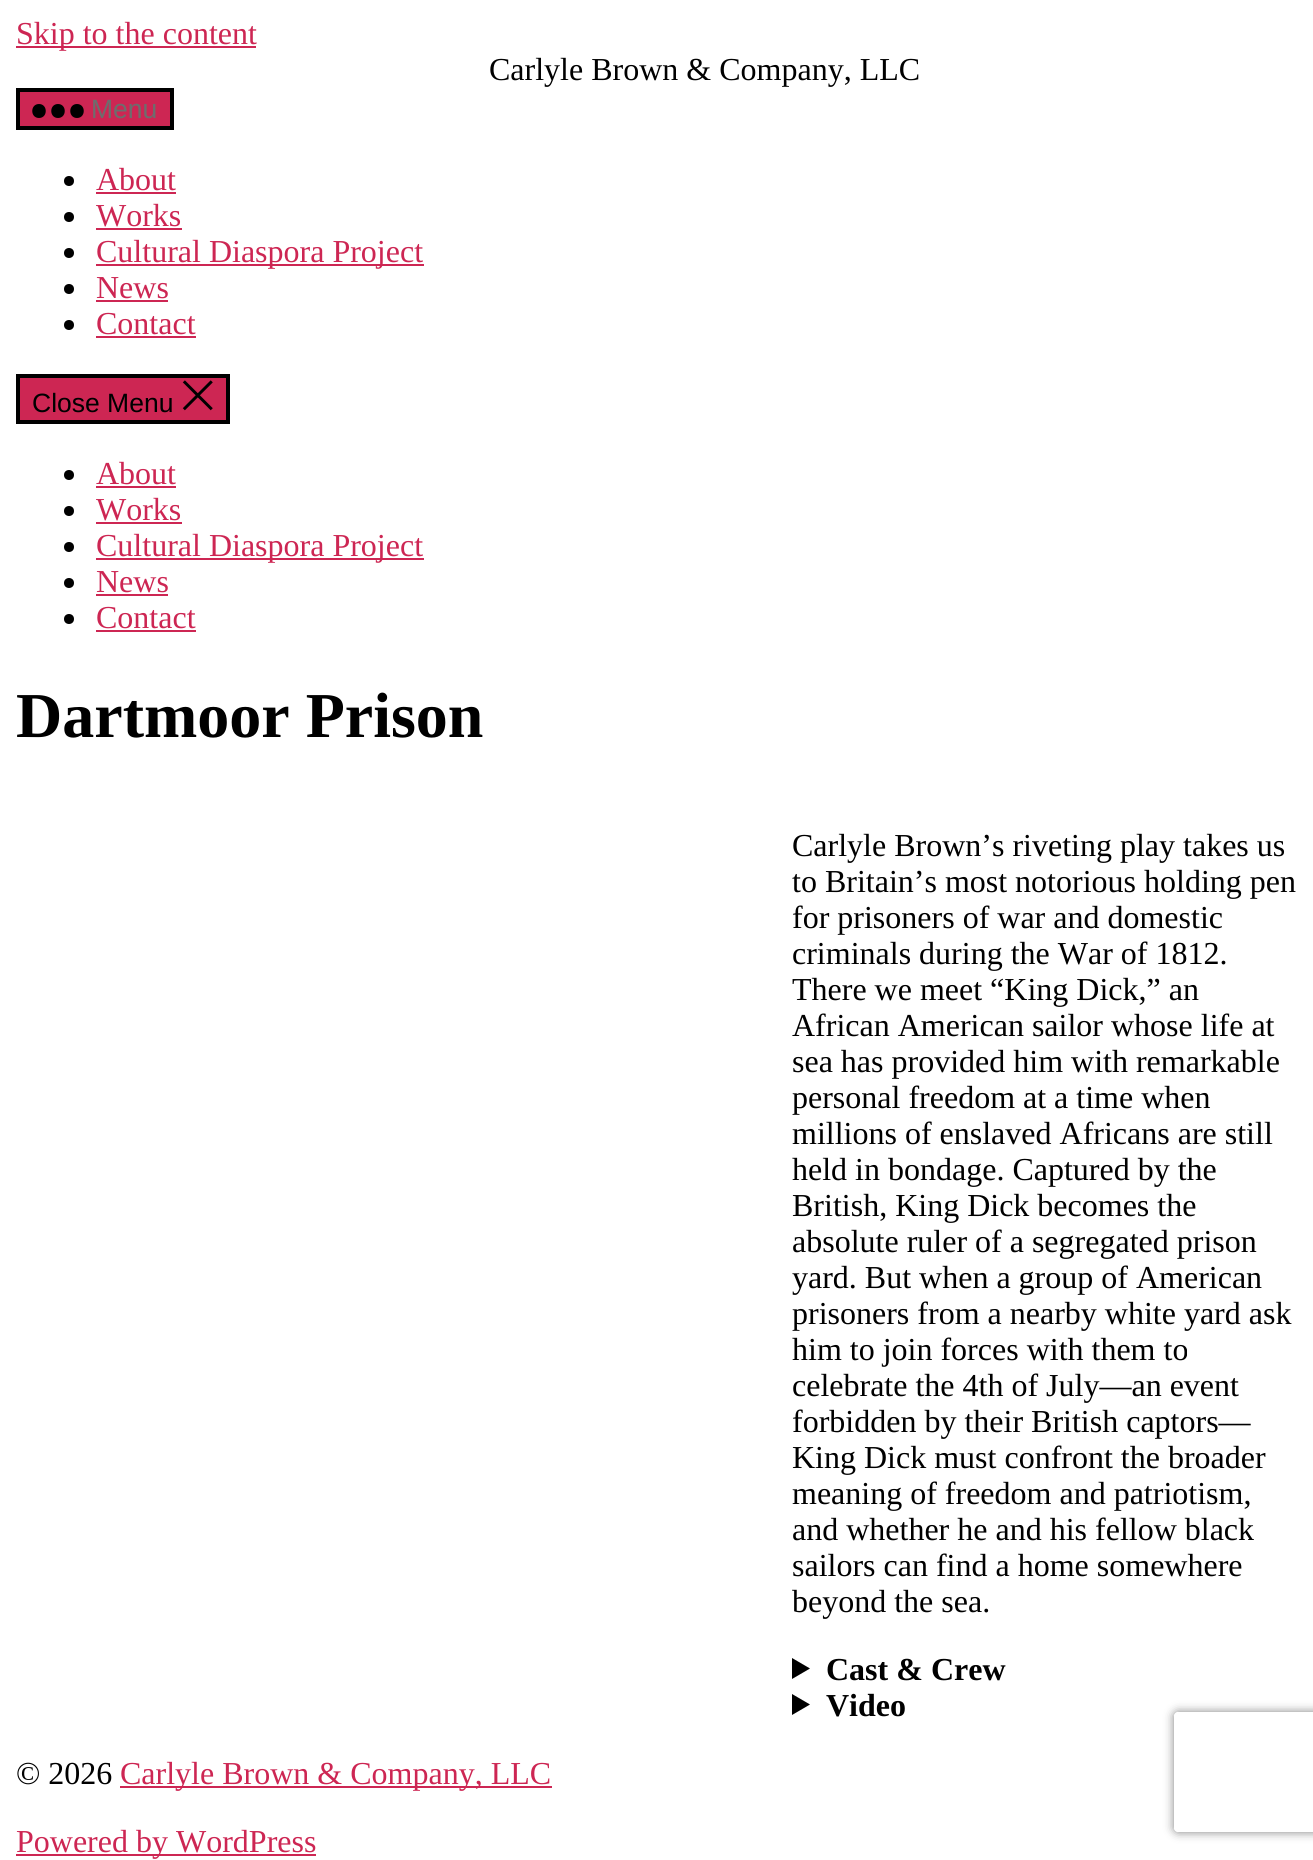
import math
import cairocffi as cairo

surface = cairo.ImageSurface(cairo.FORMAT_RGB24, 1313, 1860)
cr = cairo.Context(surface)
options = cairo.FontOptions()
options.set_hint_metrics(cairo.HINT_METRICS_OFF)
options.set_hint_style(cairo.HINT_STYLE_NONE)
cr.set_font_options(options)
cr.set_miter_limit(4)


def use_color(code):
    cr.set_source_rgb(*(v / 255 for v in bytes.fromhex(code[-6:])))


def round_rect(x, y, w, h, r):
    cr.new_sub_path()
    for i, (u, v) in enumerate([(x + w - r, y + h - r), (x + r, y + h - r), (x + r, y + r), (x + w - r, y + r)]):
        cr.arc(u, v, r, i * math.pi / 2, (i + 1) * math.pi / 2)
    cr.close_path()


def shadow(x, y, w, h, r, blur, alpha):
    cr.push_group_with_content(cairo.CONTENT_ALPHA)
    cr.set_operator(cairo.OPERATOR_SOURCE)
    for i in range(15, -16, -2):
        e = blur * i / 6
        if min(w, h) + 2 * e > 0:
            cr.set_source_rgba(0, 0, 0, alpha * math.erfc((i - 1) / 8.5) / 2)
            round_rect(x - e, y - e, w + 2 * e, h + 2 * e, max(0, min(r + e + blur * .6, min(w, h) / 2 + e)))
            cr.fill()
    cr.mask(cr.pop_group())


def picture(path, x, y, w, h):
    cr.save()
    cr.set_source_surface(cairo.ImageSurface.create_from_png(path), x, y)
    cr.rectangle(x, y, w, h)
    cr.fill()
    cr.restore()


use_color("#ffffff")
cr.paint()
use_color("#cd2653")
cr.rectangle(16, 46, 240, 2)
cr.fill()
cr.select_font_face("Liberation Serif")
cr.set_font_size(32)
cr.move_to(16, 44)
cr.show_text("Skip to the content")
use_color("#000000")
cr.move_to(489, 80)
cr.show_text("Carlyle Brown & Company, LLC")
use_color("#cd2653")
cr.rectangle(18, 90, 154, 38)
cr.fill_preserve()
use_color("#000000")
cr.set_line_width(4)
cr.stroke()
cr.select_font_face("Liberation Sans")
cr.set_font_size(26.5)
use_color("#6d6d6d")
cr.move_to(91, 118)
cr.show_text("Menu")
use_color("#000000")
cr.set_fill_rule(cairo.FILL_RULE_EVEN_ODD)
cr.new_path()
cr.move_to(39, 118)
cr.curve_to(30, 118, 30, 104, 39, 104)
cr.curve_to(48, 104, 48, 118, 39, 118)
cr.close_path()
cr.move_to(58, 118)
cr.curve_to(49, 118, 49, 104, 58, 104)
cr.curve_to(67, 104, 67, 118, 58, 118)
cr.close_path()
cr.move_to(77, 118)
cr.curve_to(68, 118, 68, 104, 77, 104)
cr.curve_to(86, 104, 86, 118, 77, 118)
cr.close_path()
cr.fill()
cr.arc(69, 181, 5, 0, 2 * math.pi)
cr.fill()
cr.select_font_face("Liberation Serif")
cr.set_font_size(32)
use_color("#cd2653")
cr.move_to(96, 190)
cr.show_text("About")
cr.rectangle(96, 192, 80, 2)
cr.fill()
use_color("#000000")
cr.arc(69, 217, 5, 0, 2 * math.pi)
cr.fill()
use_color("#cd2653")
cr.move_to(96, 226)
cr.show_text("Works")
cr.rectangle(96, 228, 86, 2)
cr.fill()
use_color("#000000")
cr.arc(69, 253, 5, 0, 2 * math.pi)
cr.fill()
use_color("#cd2653")
cr.rectangle(96, 264, 328, 2)
cr.fill()
cr.move_to(96, 262)
cr.show_text("Cultural Diaspora Project")
use_color("#000000")
cr.new_path()
cr.arc(69, 289, 5, 0, 2 * math.pi)
cr.fill()
use_color("#cd2653")
cr.move_to(96, 298)
cr.show_text("News")
cr.rectangle(96, 300, 72, 2)
cr.fill()
use_color("#000000")
cr.arc(69, 325, 5, 0, 2 * math.pi)
cr.fill()
use_color("#cd2653")
cr.move_to(96, 334)
cr.show_text("Contact")
cr.rectangle(96, 336, 100, 2)
cr.fill()
cr.rectangle(18, 376, 210, 46)
cr.fill_preserve()
use_color("#000000")
cr.stroke()
cr.select_font_face("Liberation Sans")
cr.set_font_size(26.5)
cr.move_to(32, 412)
cr.show_text("Close Menu")
picture("img1.png", 182, 380, 31, 31)
cr.arc(69, 475, 5, 0, 2 * math.pi)
cr.fill()
cr.select_font_face("Liberation Serif")
cr.set_font_size(32)
use_color("#cd2653")
cr.move_to(96, 484)
cr.show_text("About")
cr.rectangle(96, 486, 80, 2)
cr.fill()
use_color("#000000")
cr.arc(69, 511, 5, 0, 2 * math.pi)
cr.fill()
use_color("#cd2653")
cr.move_to(96, 520)
cr.show_text("Works")
cr.rectangle(96, 522, 86, 2)
cr.fill()
use_color("#000000")
cr.arc(69, 547, 5, 0, 2 * math.pi)
cr.fill()
use_color("#cd2653")
cr.rectangle(96, 558, 328, 2)
cr.fill()
cr.move_to(96, 556)
cr.show_text("Cultural Diaspora Project")
use_color("#000000")
cr.new_path()
cr.arc(69, 583, 5, 0, 2 * math.pi)
cr.fill()
use_color("#cd2653")
cr.move_to(96, 592)
cr.show_text("News")
cr.rectangle(96, 594, 72, 2)
cr.fill()
use_color("#000000")
cr.arc(69, 619, 5, 0, 2 * math.pi)
cr.fill()
use_color("#cd2653")
cr.move_to(96, 628)
cr.show_text("Contact")
cr.rectangle(96, 630, 100, 2)
cr.fill()
cr.select_font_face("Liberation Serif", cairo.FONT_SLANT_NORMAL, cairo.FONT_WEIGHT_BOLD)
cr.set_font_size(64)
use_color("#000000")
cr.move_to(16, 737)
cr.show_text("Dartmoor Prison")
cr.select_font_face("Liberation Serif")
cr.set_font_size(32)
cr.move_to(792, 856)
cr.show_text("Carlyle Brown’s riveting play takes us")
cr.move_to(792, 892)
cr.show_text("to Britain’s most notorious holding pen")
cr.move_to(792, 928)
cr.show_text("for prisoners of war and domestic")
cr.move_to(792, 964)
cr.show_text("criminals during the War of 1812.")
cr.move_to(792, 1000)
cr.show_text("There we meet “King Dick,” an")
cr.move_to(792, 1036)
cr.show_text("African American sailor whose life at")
cr.move_to(792, 1072)
cr.show_text("sea has provided him with remarkable")
cr.move_to(792, 1108)
cr.show_text("personal freedom at a time when")
cr.move_to(792, 1144)
cr.show_text("millions of enslaved Africans are still")
cr.move_to(792, 1180)
cr.show_text("held in bondage. Captured by the")
cr.move_to(792, 1216)
cr.show_text("British, King Dick becomes the")
cr.move_to(792, 1252)
cr.show_text("absolute ruler of a segregated prison")
cr.move_to(792, 1288)
cr.show_text("yard. But when a group of American")
cr.move_to(792, 1324)
cr.show_text("prisoners from a nearby white yard ask")
cr.move_to(792, 1360)
cr.show_text("him to join forces with them to")
cr.move_to(792, 1396)
cr.show_text("celebrate the 4th of July—an event")
cr.move_to(792, 1432)
cr.show_text("forbidden by their British captors—")
cr.move_to(792, 1468)
cr.show_text("King Dick must confront the broader")
cr.move_to(792, 1504)
cr.show_text("meaning of freedom and patriotism,")
cr.move_to(792, 1540)
cr.show_text("and whether he and his fellow black")
cr.move_to(792, 1576)
cr.show_text("sailors can find a home somewhere")
cr.move_to(792, 1612)
cr.show_text("beyond the sea.")
cr.set_fill_rule(cairo.FILL_RULE_WINDING)
cr.new_path()
cr.move_to(792, 1658)
cr.line_to(810, 1668.5)
cr.line_to(792, 1679)
cr.close_path()
cr.fill()
cr.select_font_face("Liberation Serif", cairo.FONT_SLANT_NORMAL, cairo.FONT_WEIGHT_BOLD)
cr.move_to(826, 1680)
cr.show_text("Cast & Crew")
cr.new_path()
cr.move_to(792, 1694)
cr.line_to(810, 1704.5)
cr.line_to(792, 1715)
cr.close_path()
cr.fill()
cr.move_to(826, 1716)
cr.show_text("Video")
cr.select_font_face("Liberation Serif")
cr.move_to(16, 1784)
cr.show_text("© 2026")
use_color("#cd2653")
cr.rectangle(120, 1786, 432, 2)
cr.fill()
cr.move_to(120, 1784)
cr.show_text("Carlyle Brown & Company, LLC")
cr.rectangle(16, 1854, 300, 2)
cr.fill()
cr.move_to(16, 1852)
cr.show_text("Powered by WordPress")
cr.save()
cr.set_fill_rule(cairo.FILL_RULE_EVEN_ODD)
cr.new_path()
cr.move_to(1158, 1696)
cr.line_to(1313, 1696)
cr.line_to(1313, 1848)
cr.line_to(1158, 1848)
cr.close_path()
cr.move_to(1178, 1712)
cr.line_to(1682, 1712)
cr.curve_to(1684, 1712, 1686, 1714, 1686, 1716)
cr.line_to(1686, 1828)
cr.curve_to(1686, 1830, 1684, 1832, 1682, 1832)
cr.line_to(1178, 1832)
cr.curve_to(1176, 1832, 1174, 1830, 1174, 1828)
cr.line_to(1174, 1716)
cr.curve_to(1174, 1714, 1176, 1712, 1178, 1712)
cr.close_path()
cr.clip()
use_color("#808080")
shadow(1174, 1712, 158, 120, 4, 5, 1)
cr.restore()
surface.write_to_png("result.png")
